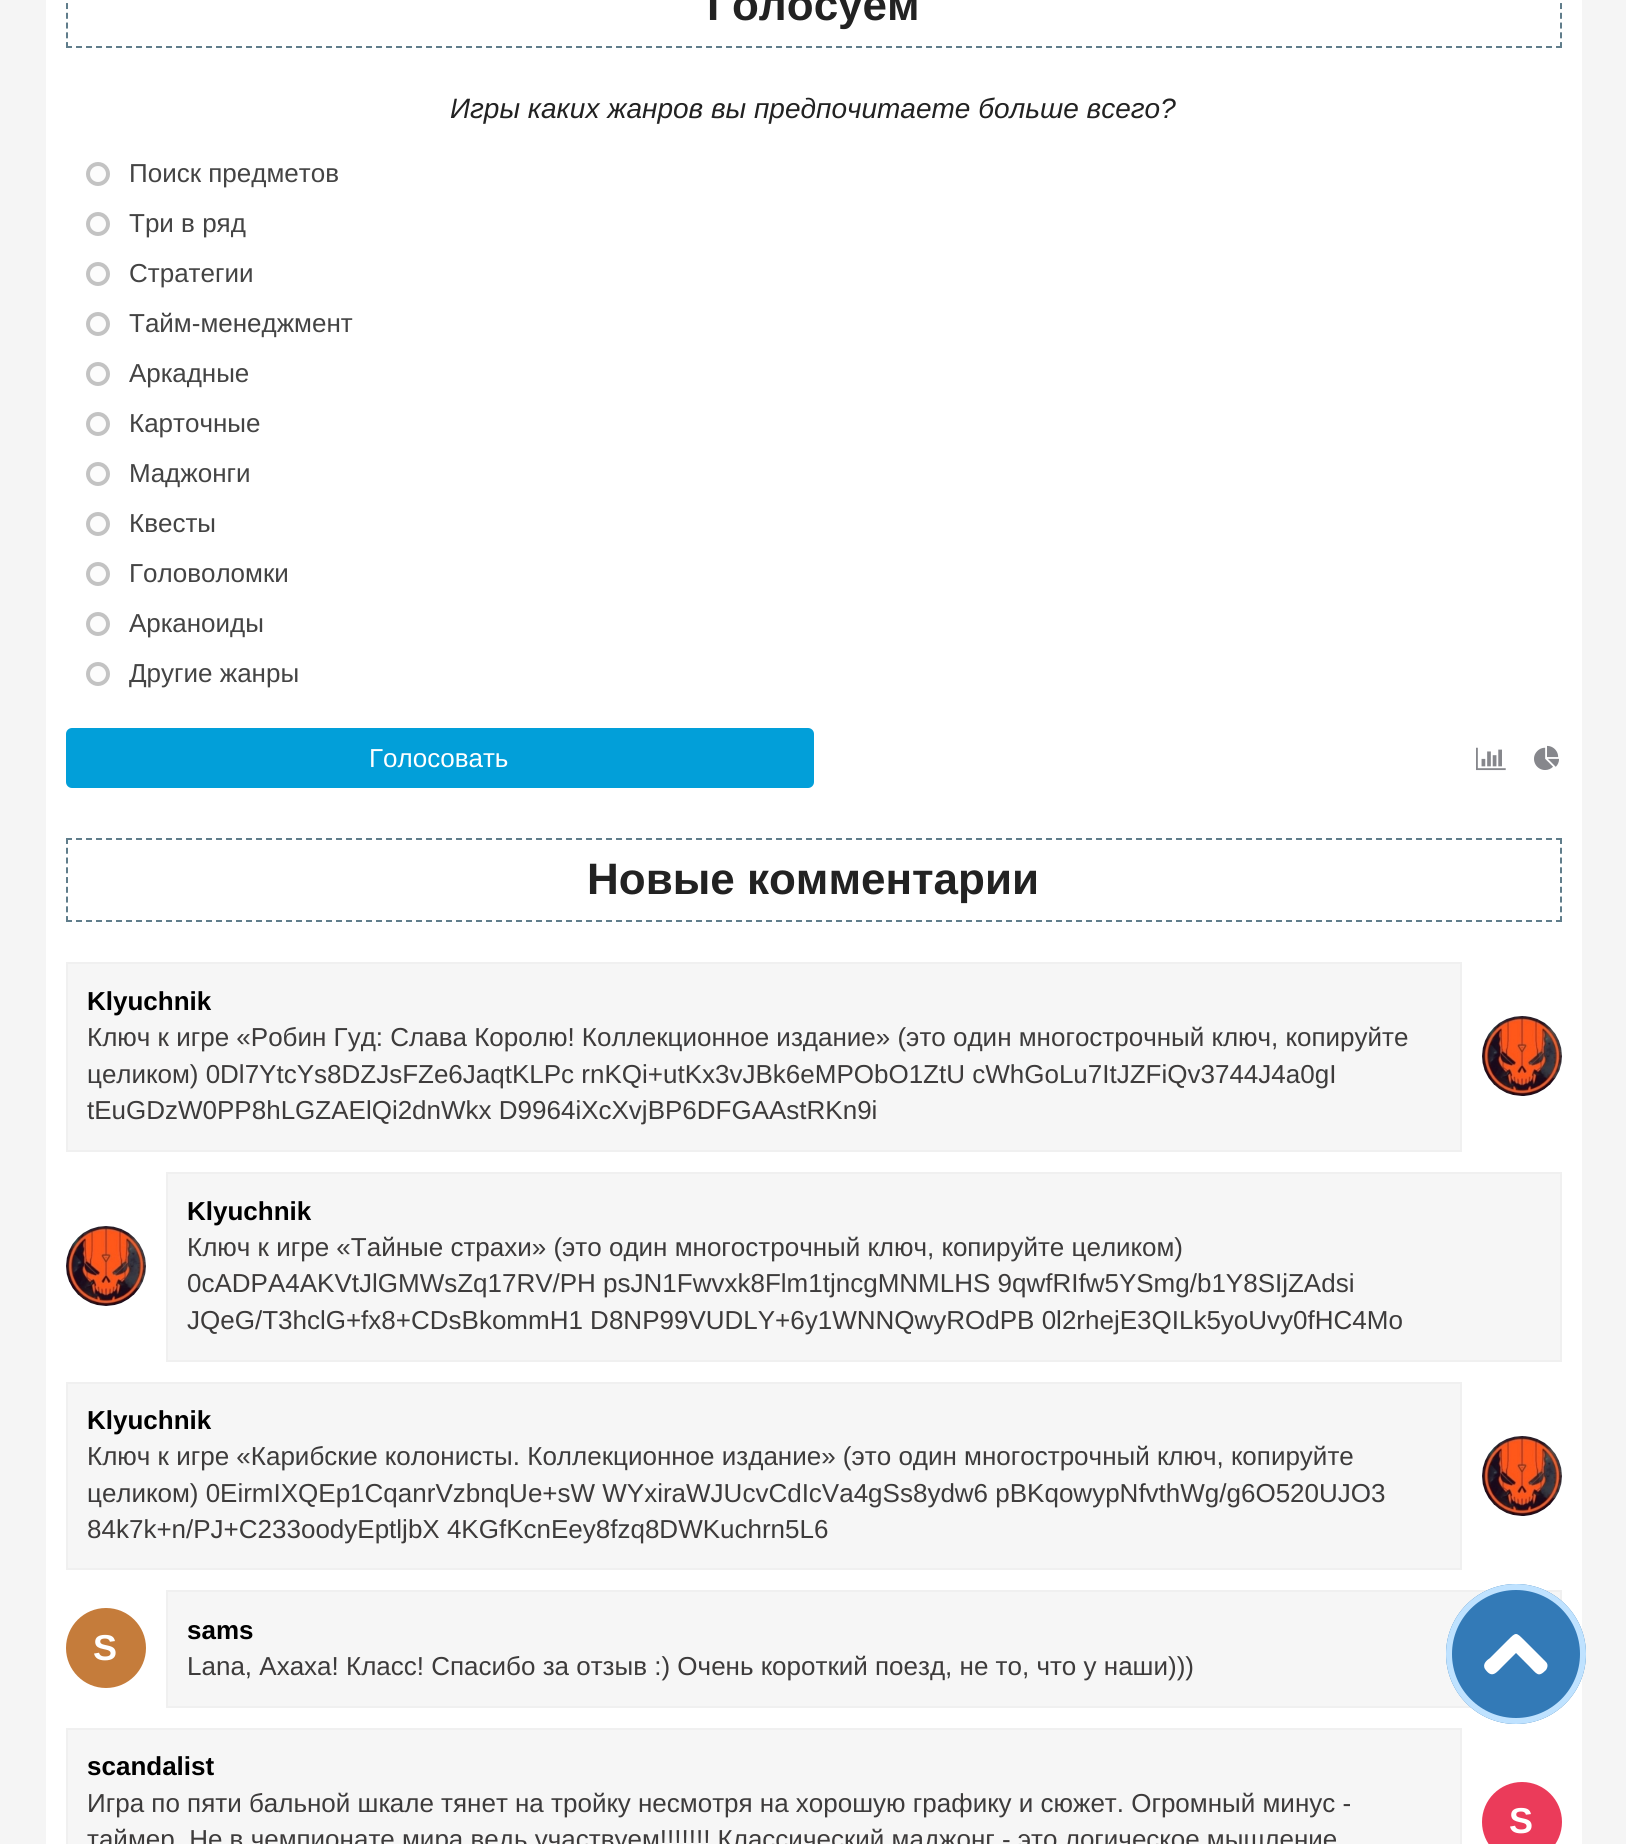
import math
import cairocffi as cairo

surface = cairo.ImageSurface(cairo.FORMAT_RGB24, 1626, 1844)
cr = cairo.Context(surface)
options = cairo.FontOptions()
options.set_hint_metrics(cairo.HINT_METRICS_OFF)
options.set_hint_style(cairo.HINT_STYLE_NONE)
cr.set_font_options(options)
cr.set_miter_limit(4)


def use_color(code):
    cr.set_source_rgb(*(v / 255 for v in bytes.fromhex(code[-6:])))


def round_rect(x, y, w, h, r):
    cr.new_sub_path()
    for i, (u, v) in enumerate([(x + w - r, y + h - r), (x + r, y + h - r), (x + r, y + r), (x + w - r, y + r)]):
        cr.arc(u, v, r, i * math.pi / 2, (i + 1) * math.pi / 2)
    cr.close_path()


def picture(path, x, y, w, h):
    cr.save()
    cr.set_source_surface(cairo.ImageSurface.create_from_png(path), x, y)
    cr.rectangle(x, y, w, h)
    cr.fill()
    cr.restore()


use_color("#f5f5f5")
cr.paint()
use_color("#ffffff")
cr.rectangle(46, 0, 1536, 1844)
cr.fill()
cr.new_path()
cr.move_to(1561, -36)
cr.line_to(1561, 48)
use_color("#607d8b")
cr.set_dash([6, 3.76])
cr.stroke()
cr.new_path()
cr.move_to(66, 47)
cr.line_to(1562, 47)
cr.set_dash([6, 4])
cr.stroke()
cr.new_path()
cr.move_to(67, -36)
cr.line_to(67, 48)
cr.set_dash([6, 3.76])
cr.stroke()
cr.select_font_face("Liberation Sans", cairo.FONT_SLANT_NORMAL, cairo.FONT_WEIGHT_BOLD)
cr.set_font_size(44)
use_color("#222222")
cr.move_to(707, 20)
cr.show_text("Голосуем")
cr.select_font_face("Liberation Sans", cairo.FONT_SLANT_ITALIC)
cr.set_font_size(28)
cr.move_to(450, 118)
cr.show_text("Игры каких жанров вы предпочитаете больше всего?")
use_color("#fcfcfc")
cr.new_path()
cr.arc(98, 174, 10, 0, 2 * math.pi)
cr.fill_preserve()
use_color("#c3c3c3")
cr.set_line_width(4)
cr.set_dash([])
cr.stroke()
cr.select_font_face("Liberation Sans")
cr.set_font_size(26)
use_color("#444444")
cr.move_to(129, 182)
cr.show_text("Поиск предметов")
use_color("#fcfcfc")
cr.new_path()
cr.arc(98, 224, 10, 0, 2 * math.pi)
cr.fill_preserve()
use_color("#c3c3c3")
cr.stroke()
use_color("#444444")
cr.move_to(129, 232)
cr.show_text("Три в ряд")
use_color("#fcfcfc")
cr.new_path()
cr.arc(98, 274, 10, 0, 2 * math.pi)
cr.fill_preserve()
use_color("#c3c3c3")
cr.stroke()
use_color("#444444")
cr.move_to(129, 282)
cr.show_text("Стратегии")
use_color("#fcfcfc")
cr.new_path()
cr.arc(98, 324, 10, 0, 2 * math.pi)
cr.fill_preserve()
use_color("#c3c3c3")
cr.stroke()
use_color("#444444")
cr.move_to(129, 332)
cr.show_text("Тайм-менеджмент")
use_color("#fcfcfc")
cr.new_path()
cr.arc(98, 374, 10, 0, 2 * math.pi)
cr.fill_preserve()
use_color("#c3c3c3")
cr.stroke()
use_color("#444444")
cr.move_to(129, 382)
cr.show_text("Аркадные")
use_color("#fcfcfc")
cr.new_path()
cr.arc(98, 424, 10, 0, 2 * math.pi)
cr.fill_preserve()
use_color("#c3c3c3")
cr.stroke()
use_color("#444444")
cr.move_to(129, 432)
cr.show_text("Карточные")
use_color("#fcfcfc")
cr.new_path()
cr.arc(98, 474, 10, 0, 2 * math.pi)
cr.fill_preserve()
use_color("#c3c3c3")
cr.stroke()
use_color("#444444")
cr.move_to(129, 482)
cr.show_text("Маджонги")
use_color("#fcfcfc")
cr.new_path()
cr.arc(98, 524, 10, 0, 2 * math.pi)
cr.fill_preserve()
use_color("#c3c3c3")
cr.stroke()
use_color("#444444")
cr.move_to(129, 532)
cr.show_text("Квесты")
use_color("#fcfcfc")
cr.new_path()
cr.arc(98, 574, 10, 0, 2 * math.pi)
cr.fill_preserve()
use_color("#c3c3c3")
cr.stroke()
use_color("#444444")
cr.move_to(129, 582)
cr.show_text("Головоломки")
use_color("#fcfcfc")
cr.new_path()
cr.arc(98, 624, 10, 0, 2 * math.pi)
cr.fill_preserve()
use_color("#c3c3c3")
cr.stroke()
use_color("#444444")
cr.move_to(129, 632)
cr.show_text("Арканоиды")
use_color("#fcfcfc")
cr.new_path()
cr.arc(98, 674, 10, 0, 2 * math.pi)
cr.fill_preserve()
use_color("#c3c3c3")
cr.stroke()
use_color("#444444")
cr.move_to(129, 682)
cr.show_text("Другие жанры")
use_color("#029fd9")
round_rect(66, 728, 748, 60, 6)
cr.fill()
use_color("#ffffff")
cr.move_to(369, 767)
cr.show_text("Голосовать")
picture("img1.png", 1476, 747, 30, 24)
picture("img2.png", 1534, 745, 25, 25)
cr.new_path()
cr.move_to(66, 839)
cr.line_to(1562, 839)
use_color("#607d8b")
cr.set_line_width(2)
cr.set_dash([6, 4])
cr.stroke()
cr.new_path()
cr.move_to(1561, 838)
cr.line_to(1561, 922)
cr.set_dash([6, 3.76])
cr.stroke()
cr.new_path()
cr.move_to(66, 921)
cr.line_to(1562, 921)
cr.set_dash([6, 4])
cr.stroke()
cr.new_path()
cr.move_to(67, 838)
cr.line_to(67, 922)
cr.set_dash([6, 3.76])
cr.stroke()
cr.select_font_face("Liberation Sans", cairo.FONT_SLANT_NORMAL, cairo.FONT_WEIGHT_BOLD)
cr.set_font_size(44)
use_color("#222222")
cr.move_to(587, 894)
cr.show_text("Новые комментарии")
use_color("#f6f6f6")
cr.rectangle(67, 963, 1394, 188)
cr.fill_preserve()
use_color("#f0f0f0")
cr.set_dash([])
cr.stroke()
cr.set_font_size(26)
use_color("#000000")
cr.move_to(87, 1010)
cr.show_text("Klyuchnik")
cr.select_font_face("Liberation Sans")
use_color("#3d3b3b")
cr.move_to(87, 1046)
cr.show_text("Ключ к игре «Робин Гуд: Слава Королю! Коллекционное издание» (это один многострочный ключ, копируйте")
cr.move_to(87, 1083)
cr.show_text("целиком) 0Dl7YtcYs8DZJsFZe6JaqtKLPc rnKQi+utKx3vJBk6eMPObO1ZtU cWhGoLu7ItJZFiQv3744J4a0gI")
cr.move_to(87, 1119)
cr.show_text("tEuGDzW0PP8hLGZAElQi2dnWkx D9964iXcXvjBP6DFGAAstRKn9i")
picture("img3.png", 1482, 1016, 80, 80)
picture("img4.png", 66, 1226, 80, 80)
use_color("#f6f6f6")
cr.rectangle(167, 1173, 1394, 188)
cr.fill_preserve()
use_color("#f0f0f0")
cr.stroke()
cr.select_font_face("Liberation Sans", cairo.FONT_SLANT_NORMAL, cairo.FONT_WEIGHT_BOLD)
use_color("#000000")
cr.move_to(187, 1220)
cr.show_text("Klyuchnik")
cr.select_font_face("Liberation Sans")
use_color("#3d3b3b")
cr.move_to(187, 1256)
cr.show_text("Ключ к игре «Тайные страхи» (это один многострочный ключ, копируйте целиком)")
cr.move_to(187, 1292)
cr.show_text("0cADPA4AKVtJlGMWsZq17RV/PH psJN1Fwvxk8Flm1tjncgMNMLHS 9qwfRIfw5YSmg/b1Y8SIjZAdsi")
cr.move_to(187, 1329)
cr.show_text("JQeG/T3hclG+fx8+CDsBkommH1 D8NP99VUDLY+6y1WNNQwyROdPB 0l2rhejE3QILk5yoUvy0fHC4Mo")
use_color("#f6f6f6")
cr.rectangle(67, 1383, 1394, 186)
cr.fill_preserve()
use_color("#f0f0f0")
cr.stroke()
cr.select_font_face("Liberation Sans", cairo.FONT_SLANT_NORMAL, cairo.FONT_WEIGHT_BOLD)
use_color("#000000")
cr.move_to(87, 1429)
cr.show_text("Klyuchnik")
cr.select_font_face("Liberation Sans")
use_color("#3d3b3b")
cr.move_to(87, 1465)
cr.show_text("Ключ к игре «Карибские колонисты. Коллекционное издание» (это один многострочный ключ, копируйте")
cr.move_to(87, 1502)
cr.show_text("целиком) 0EirmIXQEp1CqanrVzbnqUe+sW WYxiraWJUcvCdIcVa4gSs8ydw6 pBKqowypNfvthWg/g6O520UJO3")
cr.move_to(87, 1538)
cr.show_text("84k7k+n/PJ+C233oodyEptljbX 4KGfKcnEey8fzq8DWKuchrn5L6")
picture("img5.png", 1482, 1436, 80, 80)
use_color("#c57c3b")
cr.arc(106, 1648, 40, 0, 2 * math.pi)
cr.fill()
cr.select_font_face("Liberation Sans", cairo.FONT_SLANT_NORMAL, cairo.FONT_WEIGHT_BOLD)
cr.set_font_size(36)
use_color("#ffffff")
cr.move_to(93, 1660)
cr.show_text("S")
use_color("#f6f6f6")
cr.rectangle(167, 1591, 1394, 116)
cr.fill_preserve()
use_color("#f0f0f0")
cr.stroke()
cr.set_font_size(26)
use_color("#000000")
cr.move_to(187, 1639)
cr.show_text("sams")
cr.select_font_face("Liberation Sans")
use_color("#3d3b3b")
cr.move_to(187, 1675)
cr.show_text("Lana, Ахаха! Класс! Спасибо за отзыв :) Очень короткий поезд, не то, что у наши)))")
use_color("#f6f6f6")
cr.rectangle(67, 1729, 1394, 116)
cr.fill_preserve()
use_color("#f0f0f0")
cr.stroke()
cr.select_font_face("Liberation Sans", cairo.FONT_SLANT_NORMAL, cairo.FONT_WEIGHT_BOLD)
use_color("#000000")
cr.move_to(87, 1775)
cr.show_text("scandalist")
cr.select_font_face("Liberation Sans")
use_color("#3d3b3b")
cr.move_to(87, 1812)
cr.show_text("Игра по пяти бальной шкале тянет на тройку несмотря на хорошую графику и сюжет. Огромный минус -")
cr.move_to(87, 1848)
cr.show_text("таймер. Не в чемпионате мира ведь участвуем!!!!!!! Классический маджонг - это логическое мышление")
use_color("#eb3b5a")
cr.new_path()
cr.arc(1522, 1822, 40, 0, 2 * math.pi)
cr.fill()
cr.select_font_face("Liberation Sans", cairo.FONT_SLANT_NORMAL, cairo.FONT_WEIGHT_BOLD)
cr.set_font_size(36)
use_color("#ffffff")
cr.move_to(1509, 1833)
cr.show_text("S")
use_color("#337ab7")
cr.new_path()
cr.arc(1516, 1654, 70, 0, 2 * math.pi)
cr.fill()
use_color("#ffffff")
cr.new_path()
cr.move_to(1546, 1662)
cr.line_to(1524, 1640)
cr.curve_to(1516, 1632, 1516, 1632, 1508, 1640)
cr.line_to(1490, 1658)
cr.curve_to(1487, 1660, 1482, 1664, 1485, 1669)
cr.curve_to(1492, 1679, 1496, 1673, 1503, 1666)
cr.line_to(1516, 1653)
cr.line_to(1529, 1666)
cr.curve_to(1537, 1674, 1538, 1678, 1546, 1670)
cr.curve_to(1548, 1667, 1548, 1664, 1546, 1662)
cr.close_path()
cr.fill()
cr.arc(1516, 1654, 67, 0, 2 * math.pi)
use_color("#bfe2ff")
cr.set_line_width(6)
cr.stroke()
surface.write_to_png("result.png")
